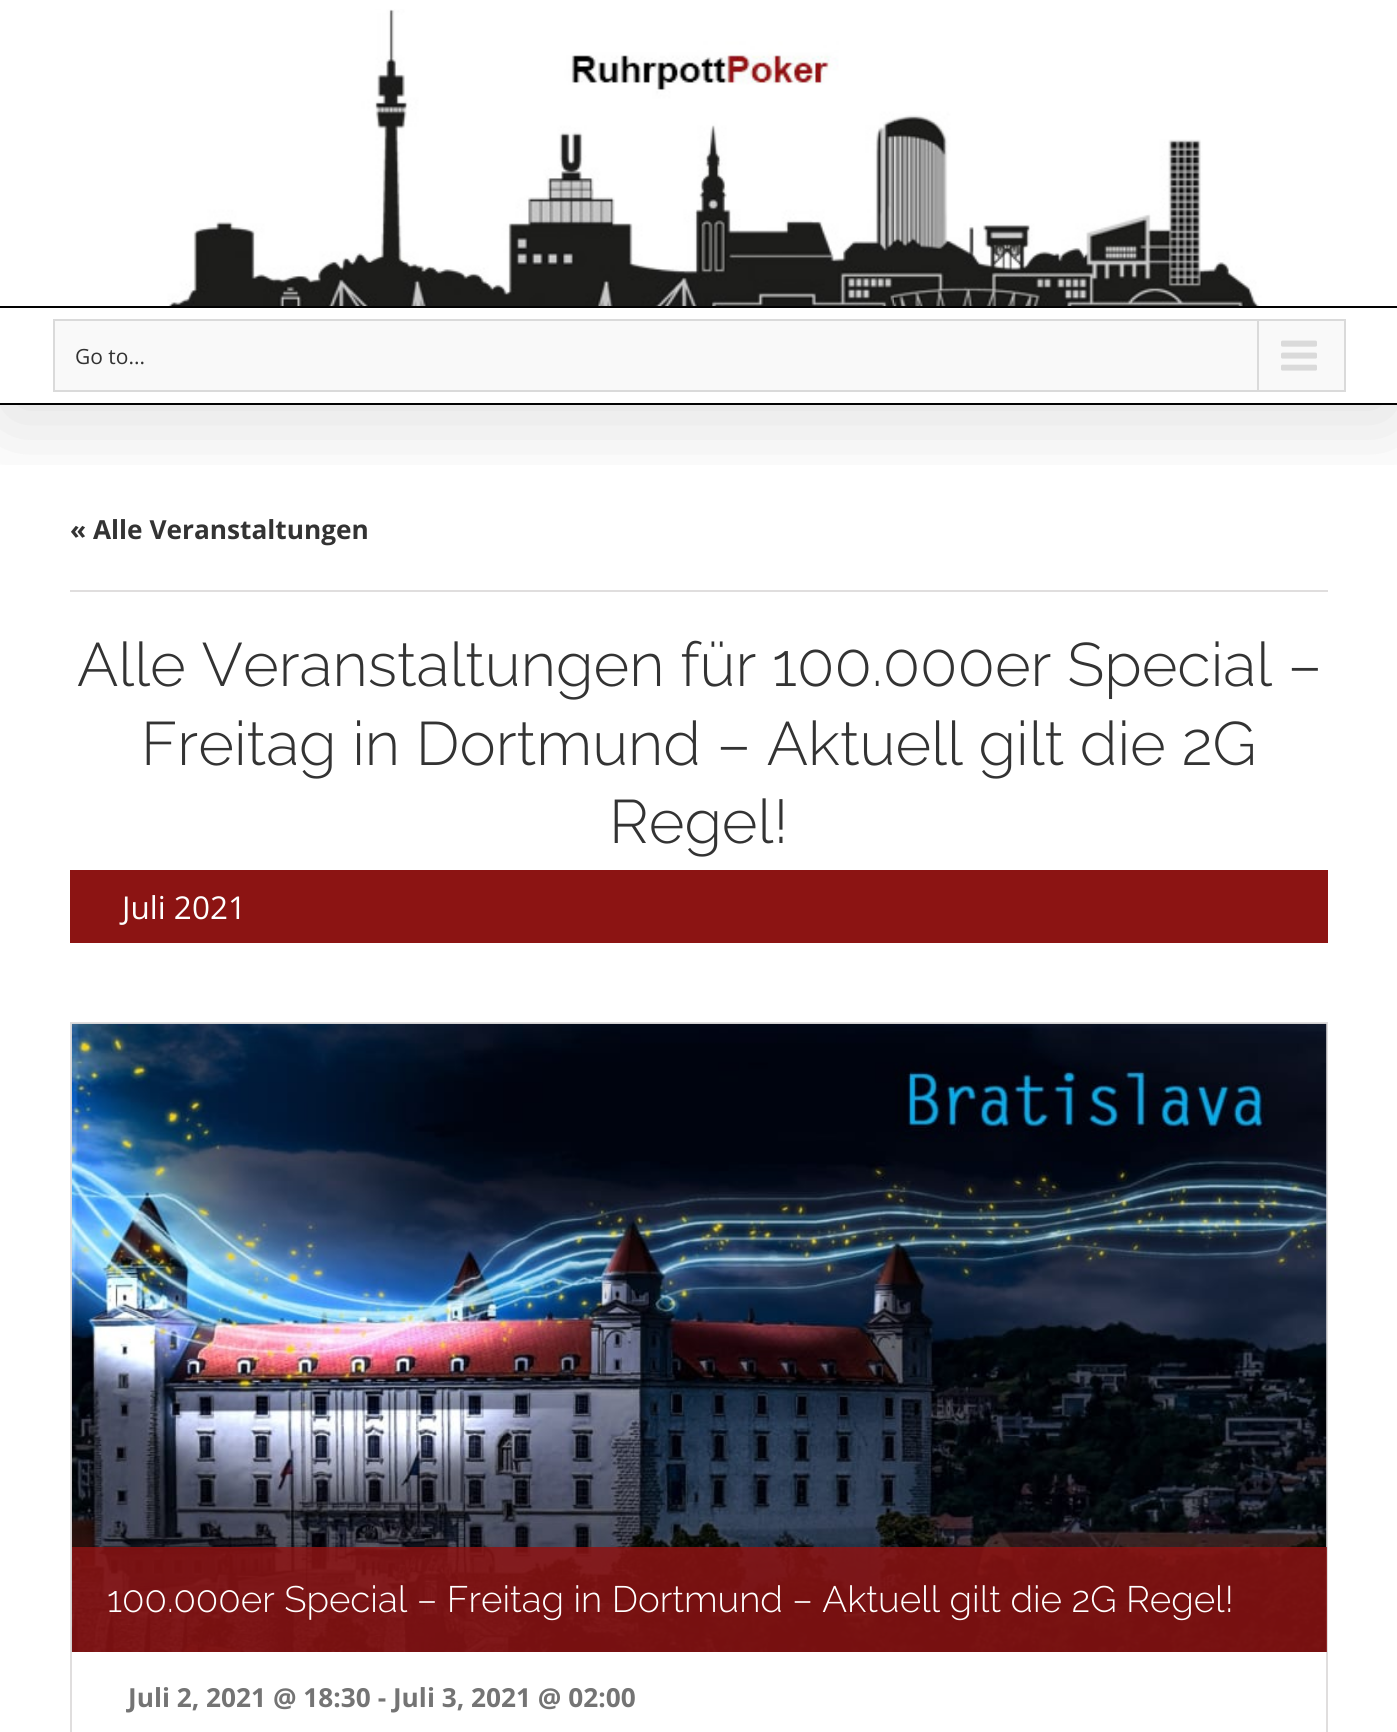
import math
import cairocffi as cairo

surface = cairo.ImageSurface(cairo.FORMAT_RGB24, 1397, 1732)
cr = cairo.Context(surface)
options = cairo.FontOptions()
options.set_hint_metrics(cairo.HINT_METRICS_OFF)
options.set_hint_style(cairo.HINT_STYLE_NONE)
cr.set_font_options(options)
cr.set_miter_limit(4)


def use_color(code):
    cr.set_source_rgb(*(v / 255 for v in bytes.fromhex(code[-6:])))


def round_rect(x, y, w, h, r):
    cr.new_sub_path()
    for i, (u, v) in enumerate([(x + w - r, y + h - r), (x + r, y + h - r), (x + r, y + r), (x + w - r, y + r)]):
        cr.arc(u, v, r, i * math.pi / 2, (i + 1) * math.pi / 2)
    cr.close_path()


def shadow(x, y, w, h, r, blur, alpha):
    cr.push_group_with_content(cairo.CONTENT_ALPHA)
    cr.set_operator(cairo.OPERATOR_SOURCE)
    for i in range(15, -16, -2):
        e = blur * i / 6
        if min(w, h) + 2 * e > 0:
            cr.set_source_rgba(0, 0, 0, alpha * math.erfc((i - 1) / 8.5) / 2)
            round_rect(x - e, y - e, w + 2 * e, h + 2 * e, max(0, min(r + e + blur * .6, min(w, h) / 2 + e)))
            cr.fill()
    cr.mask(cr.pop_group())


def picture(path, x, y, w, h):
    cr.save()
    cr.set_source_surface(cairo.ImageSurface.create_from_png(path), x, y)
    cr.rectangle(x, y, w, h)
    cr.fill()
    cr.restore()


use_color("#ffffff")
cr.paint()
cr.save()
cr.rectangle(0, 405, 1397, 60)
cr.clip()
use_color("#000000")
shadow(4, 21, 1391, 397, 0, 44, 0.14)
cr.restore()
picture("img1.png", 167, 9, 1095, 297)
use_color("#020202")
cr.rectangle(0, 306, 1397, 2)
cr.fill()
cr.rectangle(0, 403, 1397, 2)
cr.fill()
use_color("#f9f9f9")
cr.rectangle(54, 320, 1291, 71)
cr.fill_preserve()
use_color("#dadada")
cr.stroke()
cr.select_font_face("Open Sans")
cr.set_font_size(21)
use_color("#333333")
cr.move_to(75, 364)
cr.show_text("Go to...")
use_color("#dadada")
cr.rectangle(1257, 320, 2, 70)
cr.fill()
picture("img2.png", 1281, 340, 36, 31)
cr.select_font_face("Open Sans", cairo.FONT_SLANT_NORMAL, cairo.FONT_WEIGHT_BOLD)
cr.set_font_size(26.25)
use_color("#333333")
cr.move_to(70, 539)
cr.show_text("« Alle Veranstaltungen")
use_color("#e0dede")
cr.rectangle(70, 590, 1258, 2)
cr.fill()
cr.select_font_face("Raleway Thin")
cr.set_font_size(61.2)
use_color("#333333")
cr.move_to(77, 686)
cr.show_text("Alle Veranstaltungen für 100.000er Special –")
cr.move_to(141, 765)
cr.show_text("Freitag in Dortmund – Aktuell gilt die 2G")
cr.move_to(609, 843)
cr.show_text("Regel!")
use_color("#8c1413")
cr.rectangle(70, 870, 1258, 73)
cr.fill()
cr.select_font_face("Open Sans")
cr.set_font_size(31.5)
use_color("#ffffff")
cr.move_to(122, 919)
cr.show_text("Juli 2021")
cr.rectangle(71, 1023, 1256, 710)
use_color("#e0dede")
cr.stroke()
picture("img3.png", 71, 1023, 1256, 629)
cr.set_source_rgba(0.549, 0.078, 0.075, 0.85)
cr.rectangle(72, 1547, 1255, 105)
cr.fill()
cr.select_font_face("Raleway Thin")
cr.set_font_size(36.75)
use_color("#ffffff")
cr.move_to(107, 1612)
cr.show_text("100.000er Special – Freitag in Dortmund – Aktuell gilt die 2G Regel!")
cr.select_font_face("Open Sans", cairo.FONT_SLANT_NORMAL, cairo.FONT_WEIGHT_BOLD)
cr.set_font_size(26.25)
use_color("#747474")
cr.move_to(128, 1707)
cr.show_text("Juli 2, 2021 @ 18:30 - Juli 3, 2021 @ 02:00")
surface.write_to_png("result.png")
